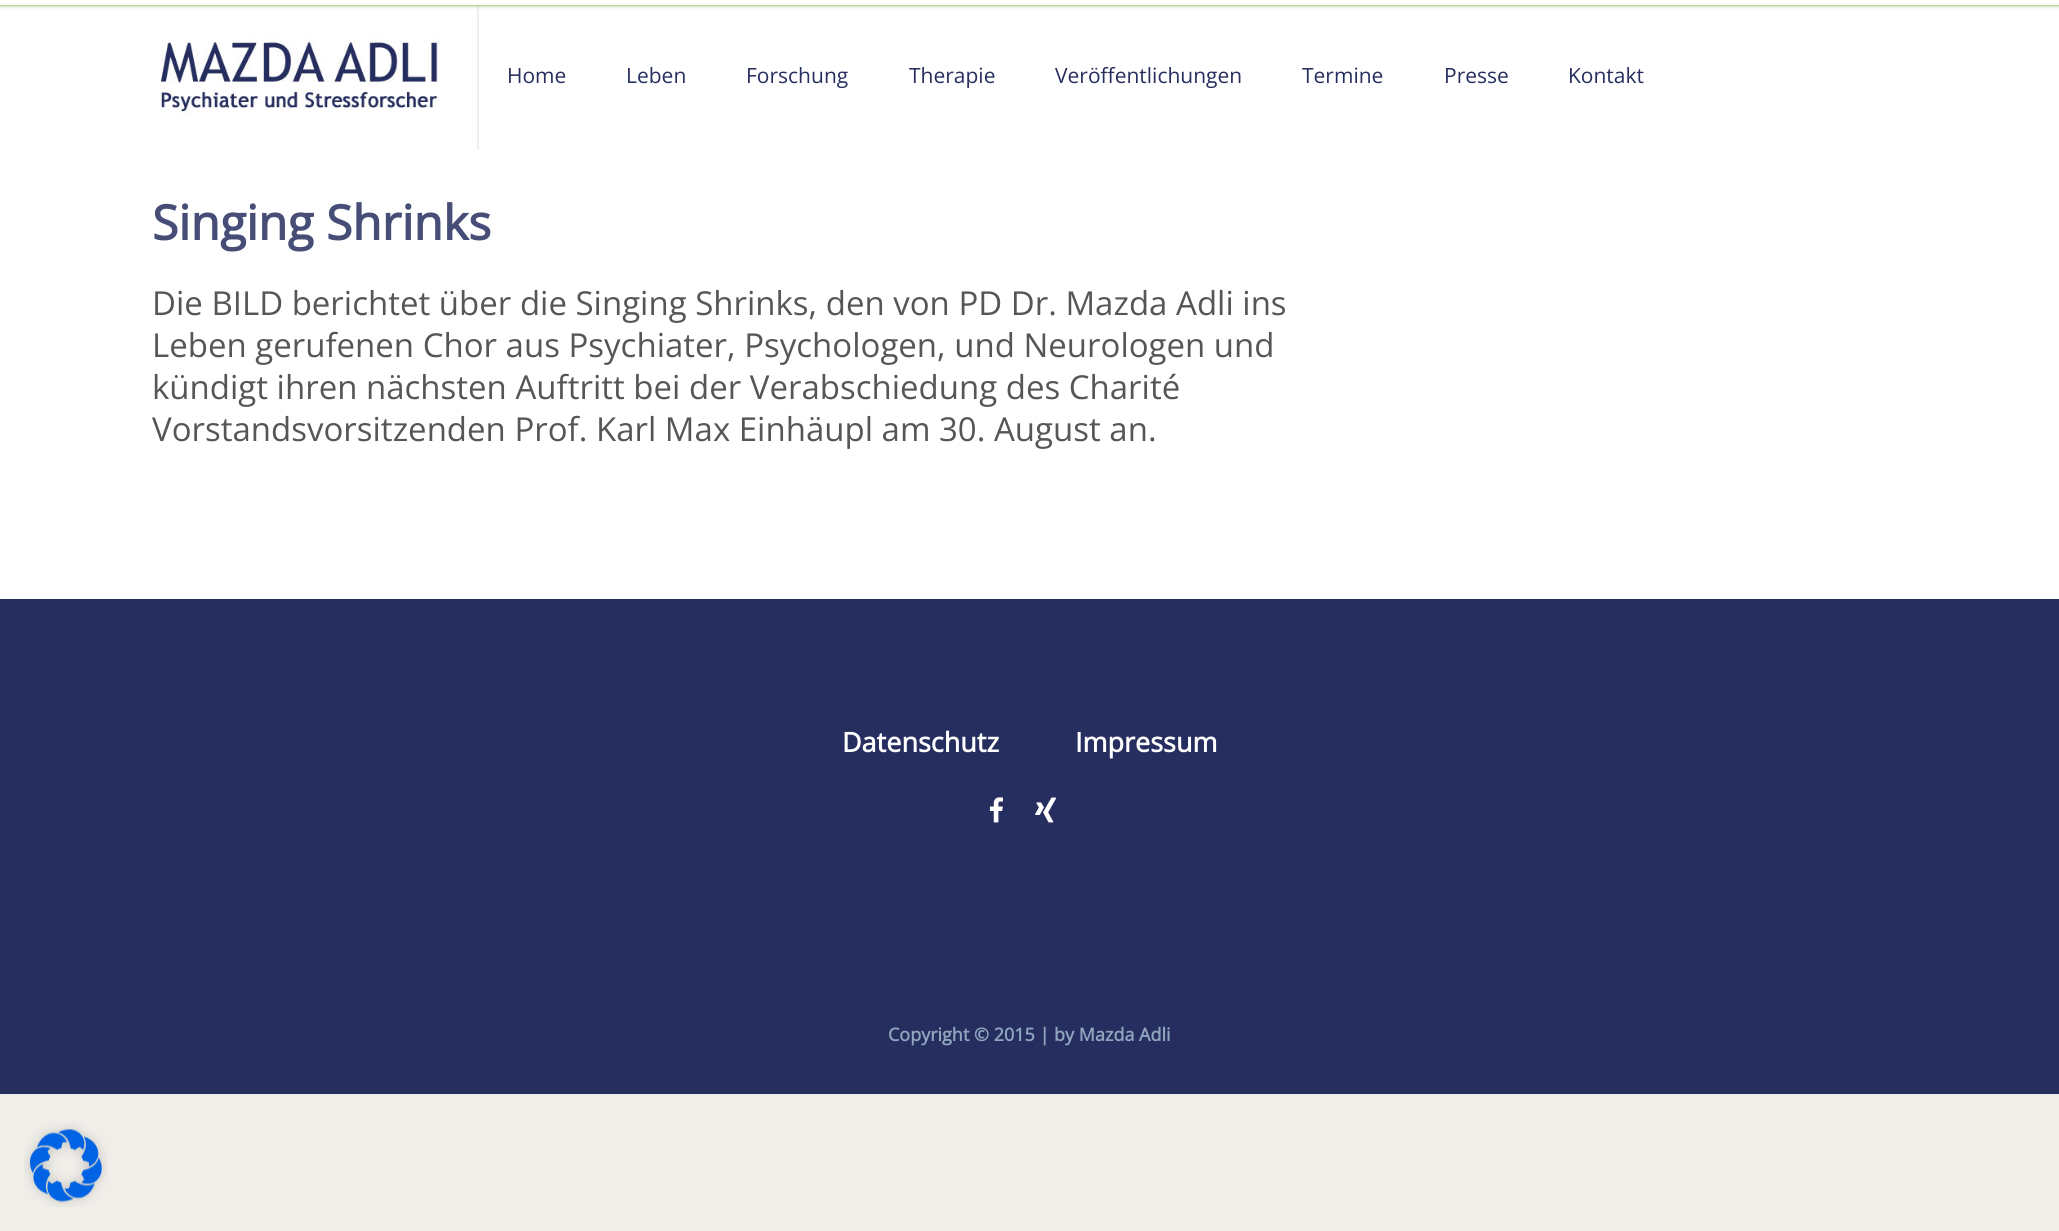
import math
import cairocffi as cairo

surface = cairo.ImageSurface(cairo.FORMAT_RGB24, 2059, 1231)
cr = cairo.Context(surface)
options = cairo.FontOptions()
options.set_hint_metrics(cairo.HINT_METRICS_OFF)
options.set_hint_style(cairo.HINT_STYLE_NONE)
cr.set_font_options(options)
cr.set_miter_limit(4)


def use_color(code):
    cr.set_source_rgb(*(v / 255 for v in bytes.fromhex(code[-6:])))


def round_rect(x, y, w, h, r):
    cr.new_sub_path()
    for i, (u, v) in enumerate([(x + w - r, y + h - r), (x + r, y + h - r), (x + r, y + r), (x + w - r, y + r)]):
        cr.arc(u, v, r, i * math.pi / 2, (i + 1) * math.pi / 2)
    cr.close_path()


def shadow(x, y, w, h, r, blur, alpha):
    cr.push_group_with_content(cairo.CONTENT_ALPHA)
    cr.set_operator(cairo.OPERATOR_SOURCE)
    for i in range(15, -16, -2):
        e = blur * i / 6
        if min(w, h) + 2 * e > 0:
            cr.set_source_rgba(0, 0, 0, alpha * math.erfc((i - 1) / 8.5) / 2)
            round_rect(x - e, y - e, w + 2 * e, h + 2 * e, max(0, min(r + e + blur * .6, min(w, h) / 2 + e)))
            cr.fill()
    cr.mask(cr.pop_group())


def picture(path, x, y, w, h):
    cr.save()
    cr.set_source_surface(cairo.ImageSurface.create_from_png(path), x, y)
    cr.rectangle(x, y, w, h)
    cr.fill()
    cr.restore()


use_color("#efeee9")
cr.paint()
use_color("#ffffff")
cr.rectangle(0, 5, 2059, 594)
cr.fill()
use_color("#edefef")
cr.rectangle(477, 0, 2, 150)
cr.fill()
use_color("#65a11b")
shadow(0, 0, 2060, 5, 0, 2, 1)
use_color("#ffffff")
cr.rectangle(0, 0, 2059, 5)
cr.fill()
picture("img1.png", 159, 37, 281, 78)
cr.select_font_face("Open Sans")
cr.set_font_size(21)
use_color("#262e5f")
cr.move_to(507, 83)
cr.show_text("Home")
cr.move_to(626, 83)
cr.show_text("Leben")
cr.move_to(746, 83)
cr.show_text("Forschung")
cr.move_to(909, 83)
cr.show_text("Therapie")
cr.move_to(1055, 83)
cr.show_text("Veröffentlichungen")
cr.move_to(1302, 83)
cr.show_text("Termine")
cr.move_to(1444, 83)
cr.show_text("Presse")
cr.move_to(1568, 83)
cr.show_text("Kontakt")
cr.select_font_face("Open Sans", cairo.FONT_SLANT_NORMAL, cairo.FONT_WEIGHT_BOLD)
cr.set_font_size(48)
use_color("#464d77")
cr.move_to(152, 240)
cr.show_text("Singing Shrinks")
cr.select_font_face("Open Sans")
cr.set_font_size(33)
use_color("#575656")
cr.move_to(152, 315)
cr.show_text("Die BILD berichtet über die Singing Shrinks, den von PD Dr. Mazda Adli ins")
cr.move_to(152, 357)
cr.show_text("Leben gerufenen Chor aus Psychiater, Psychologen, und Neurologen und")
cr.move_to(152, 399)
cr.show_text("kündigt ihren nächsten Auftritt bei der Verabschiedung des Charité")
cr.move_to(152, 441)
cr.show_text("Vorstandsvorsitzenden Prof. Karl Max Einhäupl am 30. August an.")
use_color("#262e5f")
cr.rectangle(0, 599, 2059, 495)
cr.fill()
cr.select_font_face("Open Sans", cairo.FONT_SLANT_NORMAL, cairo.FONT_WEIGHT_BOLD)
cr.set_font_size(27)
use_color("#ffffff")
cr.move_to(842, 752)
cr.show_text("Datenschutz")
cr.move_to(1075, 752)
cr.show_text("Impressum")
picture("img2.png", 989, 797, 14, 26)
picture("img3.png", 1035, 797, 22, 26)
cr.set_font_size(18)
use_color("#90a6bf")
cr.move_to(888, 1041)
cr.show_text("Copyright © 2015 | by Mazda Adli")
picture("img4.png", 24, 1123, 84, 84)
surface.write_to_png("result.png")
